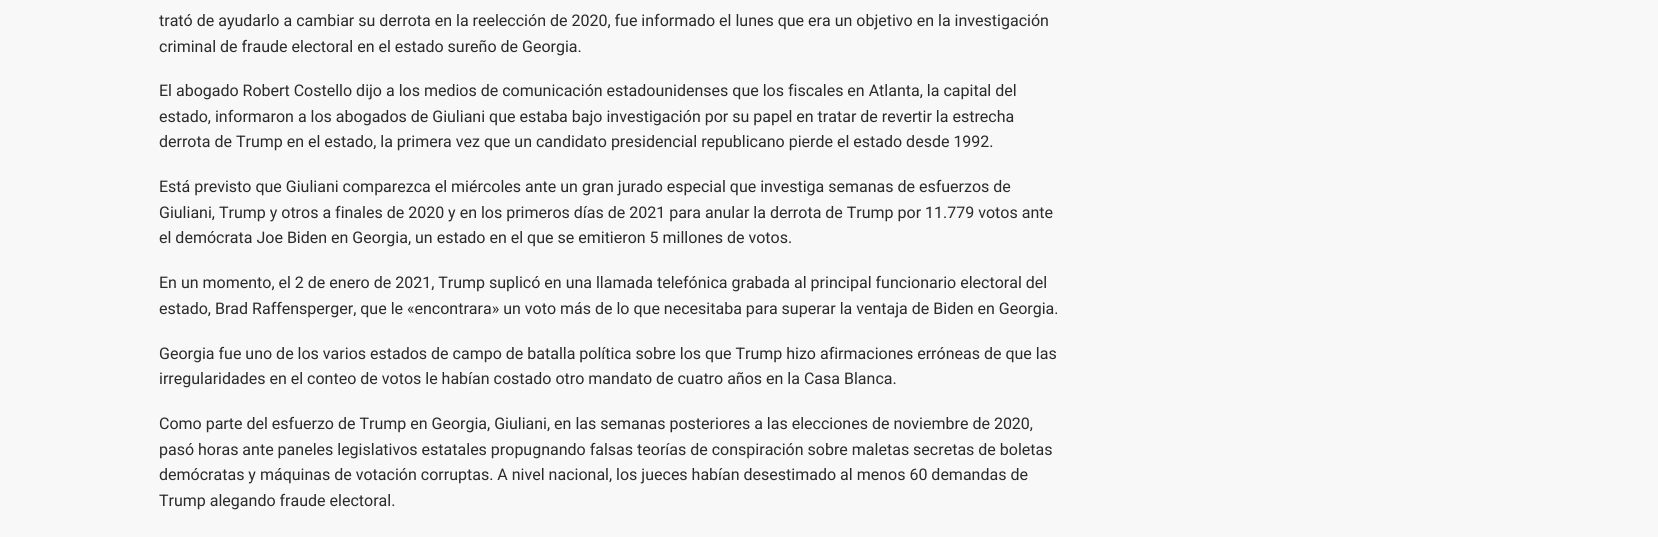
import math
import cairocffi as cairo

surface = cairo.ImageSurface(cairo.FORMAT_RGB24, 1658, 537)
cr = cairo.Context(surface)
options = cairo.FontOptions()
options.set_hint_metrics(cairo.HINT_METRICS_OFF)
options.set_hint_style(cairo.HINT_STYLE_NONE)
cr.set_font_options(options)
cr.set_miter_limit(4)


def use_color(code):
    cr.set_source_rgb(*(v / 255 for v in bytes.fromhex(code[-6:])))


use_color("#f8f8f8")
cr.paint()
cr.select_font_face("Heebo")
cr.set_font_size(16)
use_color("#2c2b2b")
cr.move_to(159, 26)
cr.show_text("trató de ayudarlo a cambiar su derrota en la reelección de 2020, fue informado el lunes que era un objetivo en la investigación")
cr.move_to(159, 52)
cr.show_text("criminal de fraude electoral en el estado sureño de Georgia.")
cr.move_to(159, 96)
cr.show_text("El abogado Robert Costello dijo a los medios de comunicación estadounidenses que los fiscales en Atlanta, la capital del")
cr.move_to(159, 122)
cr.show_text("estado, informaron a los abogados de Giuliani que estaba bajo investigación por su papel en tratar de revertir la estrecha")
cr.move_to(159, 147)
cr.show_text("derrota de Trump en el estado, la primera vez que un candidato presidencial republicano pierde el estado desde 1992.")
cr.move_to(159, 192)
cr.show_text("Está previsto que Giuliani comparezca el miércoles ante un gran jurado especial que investiga semanas de esfuerzos de")
cr.move_to(159, 218)
cr.show_text("Giuliani, Trump y otros a finales de 2020 y en los primeros días de 2021 para anular la derrota de Trump por 11.779 votos ante")
cr.move_to(159, 243)
cr.show_text("el demócrata Joe Biden en Georgia, un estado en el que se emitieron 5 millones de votos.")
cr.move_to(159, 288)
cr.show_text("En un momento, el 2 de enero de 2021, Trump suplicó en una llamada telefónica grabada al principal funcionario electoral del")
cr.move_to(159, 314)
cr.show_text("estado, Brad Raffensperger, que le «encontrara» un voto más de lo que necesitaba para superar la ventaja de Biden en Georgia.")
cr.move_to(159, 359)
cr.show_text("Georgia fue uno de los varios estados de campo de batalla política sobre los que Trump hizo afirmaciones erróneas de que las")
cr.move_to(159, 384)
cr.show_text("irregularidades en el conteo de votos le habían costado otro mandato de cuatro años en la Casa Blanca.")
cr.move_to(159, 429)
cr.show_text("Como parte del esfuerzo de Trump en Georgia, Giuliani, en las semanas posteriores a las elecciones de noviembre de 2020,")
cr.move_to(159, 455)
cr.show_text("pasó horas ante paneles legislativos estatales propugnando falsas teorías de conspiración sobre maletas secretas de boletas")
cr.move_to(159, 480)
cr.show_text("demócratas y máquinas de votación corruptas. A nivel nacional, los jueces habían desestimado al menos 60 demandas de")
cr.move_to(159, 506)
cr.show_text("Trump alegando fraude electoral.")
surface.write_to_png("result.png")
